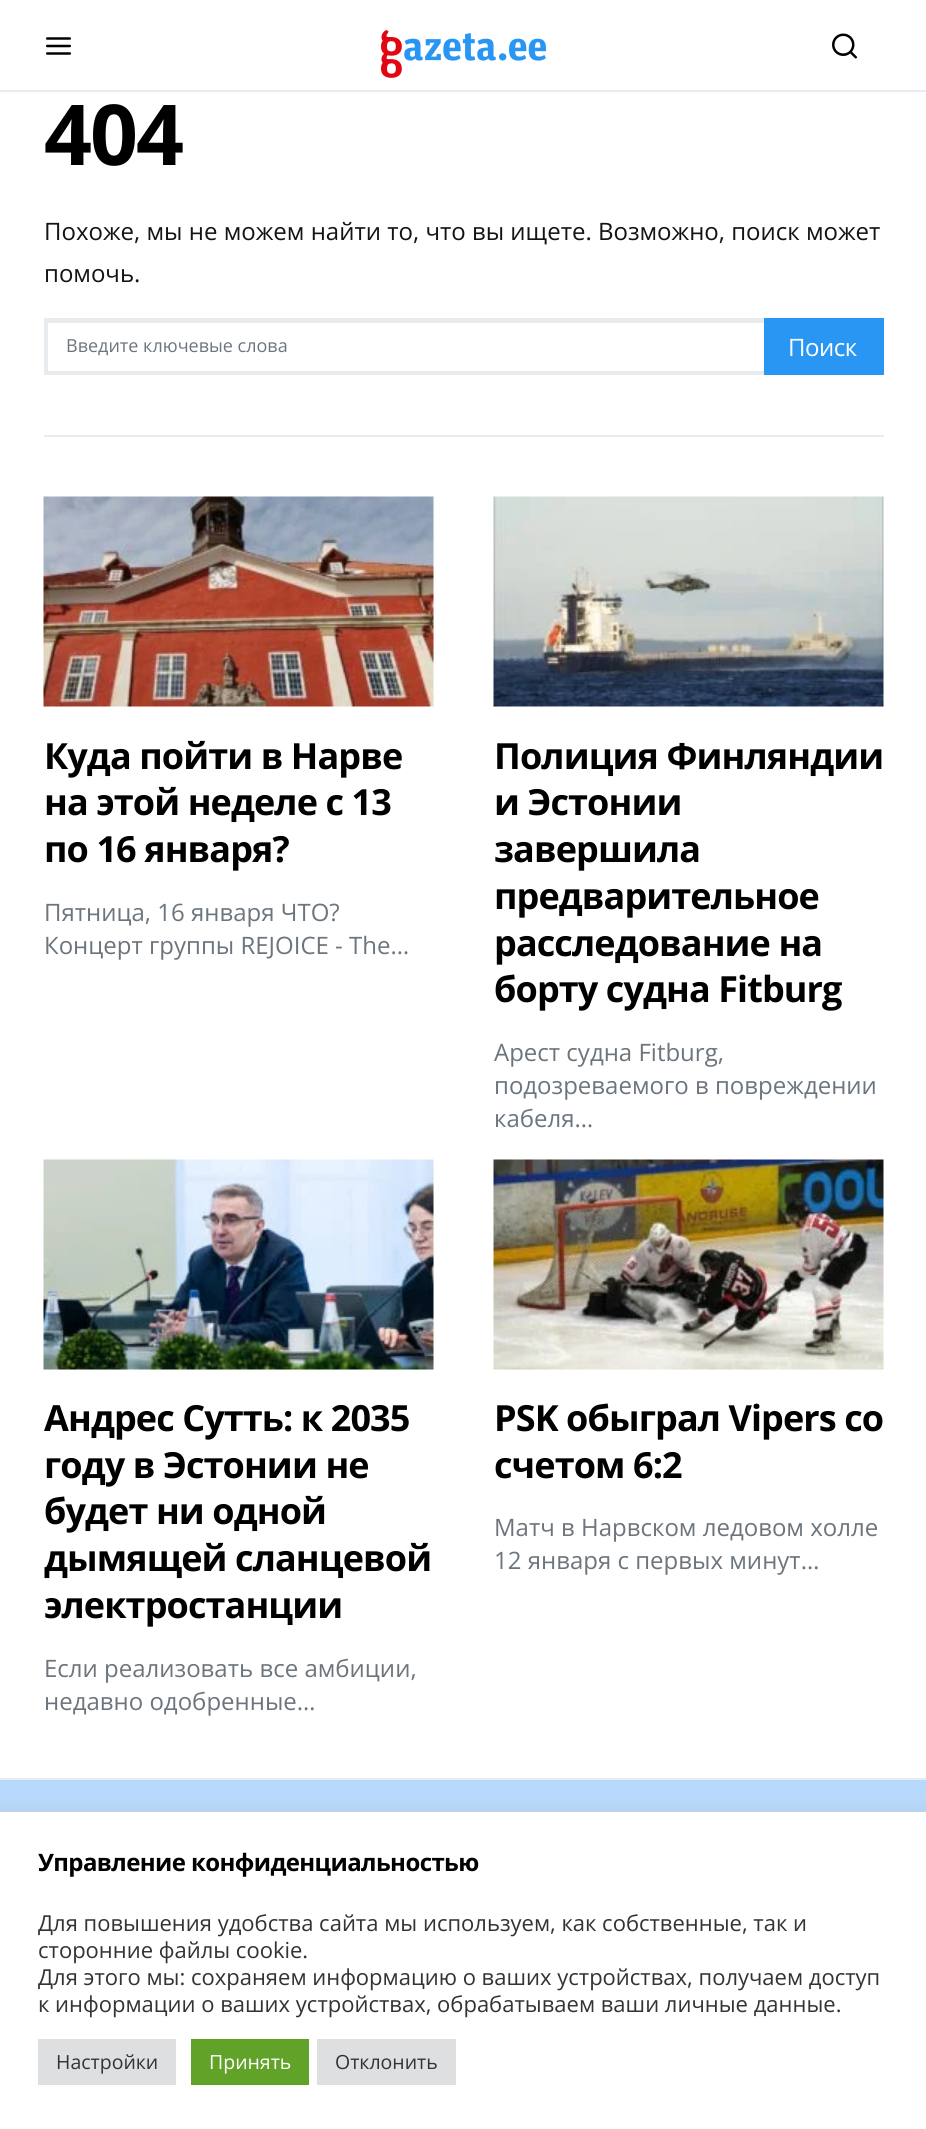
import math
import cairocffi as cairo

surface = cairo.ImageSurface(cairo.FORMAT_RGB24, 926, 2129)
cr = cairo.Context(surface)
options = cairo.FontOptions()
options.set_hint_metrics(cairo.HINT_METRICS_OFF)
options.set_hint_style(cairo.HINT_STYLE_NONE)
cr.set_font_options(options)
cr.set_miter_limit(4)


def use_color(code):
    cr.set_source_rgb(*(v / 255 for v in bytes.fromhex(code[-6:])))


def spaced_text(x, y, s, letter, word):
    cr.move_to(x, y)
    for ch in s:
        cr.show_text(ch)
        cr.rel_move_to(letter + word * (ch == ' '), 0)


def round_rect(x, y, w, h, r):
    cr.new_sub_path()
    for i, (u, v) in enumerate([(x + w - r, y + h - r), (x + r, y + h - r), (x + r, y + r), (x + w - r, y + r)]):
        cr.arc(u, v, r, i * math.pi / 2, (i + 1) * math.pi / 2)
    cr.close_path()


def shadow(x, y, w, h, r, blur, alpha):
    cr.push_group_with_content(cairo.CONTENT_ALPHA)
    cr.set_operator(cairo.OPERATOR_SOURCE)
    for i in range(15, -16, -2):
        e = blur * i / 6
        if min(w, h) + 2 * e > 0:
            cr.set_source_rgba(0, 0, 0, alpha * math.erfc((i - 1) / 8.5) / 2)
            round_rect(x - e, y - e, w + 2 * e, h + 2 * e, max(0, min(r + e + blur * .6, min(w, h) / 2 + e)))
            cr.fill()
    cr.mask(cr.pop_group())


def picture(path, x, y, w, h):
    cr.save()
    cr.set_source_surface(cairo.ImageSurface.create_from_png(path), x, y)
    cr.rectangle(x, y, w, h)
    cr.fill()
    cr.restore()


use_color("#ffffff")
cr.paint()
picture("img1.png", 381, 30, 165, 48)
use_color("#e9ecef")
cr.rectangle(0, 90, 926, 2)
cr.fill()
picture("img2.png", 46, 37, 25, 18)
picture("img3.png", 832, 33, 25, 26)
cr.select_font_face("Open Sans", cairo.FONT_SLANT_NORMAL, cairo.FONT_WEIGHT_BOLD)
cr.set_font_size(84)
use_color("#000000")
spaced_text(44, 165, "404", -2, 0)
cr.select_font_face("Open Sans")
cr.set_font_size(24)
use_color("#121416")
cr.move_to(44, 240)
cr.show_text("Похоже, мы не можем найти то, что вы ищете. Возможно, поиск может")
cr.move_to(44, 282)
cr.show_text("помочь.")
use_color("#e9ecef")
cr.rectangle(44, 318, 720, 57)
cr.fill()
use_color("#ffffff")
cr.rectangle(48, 323, 716, 48)
cr.fill()
cr.set_font_size(18)
use_color("#6c757d")
cr.move_to(66, 352)
cr.show_text("Введите ключевые слова")
use_color("#2996f3")
cr.rectangle(764, 318, 120, 57)
cr.fill()
cr.set_font_size(24)
use_color("#ffffff")
spaced_text(788, 356, "Поиск", -0.5, 0)
use_color("#e9ecef")
cr.rectangle(44, 435, 840, 2)
cr.fill()
picture("img4.png", 43, 496, 391, 211)
cr.select_font_face("Open Sans", cairo.FONT_SLANT_NORMAL, cairo.FONT_WEIGHT_BOLD)
cr.set_font_size(36)
use_color("#000000")
spaced_text(44, 769, "Куда пойти в Нарве", -0.9, 0)
spaced_text(44, 815, "на этой неделе с 13", -0.9, 0)
spaced_text(44, 862, "по 16 января?", -0.9, 0)
cr.select_font_face("Open Sans")
cr.set_font_size(24)
use_color("#6c757d")
cr.move_to(44, 921)
cr.show_text("Пятница, 16 января ЧТО?")
cr.move_to(44, 954)
cr.show_text("Концерт группы REJOICE - The…")
picture("img5.png", 493, 496, 391, 211)
cr.select_font_face("Open Sans", cairo.FONT_SLANT_NORMAL, cairo.FONT_WEIGHT_BOLD)
cr.set_font_size(36)
use_color("#000000")
spaced_text(494, 769, "Полиция Финляндии", -0.9, 0)
spaced_text(494, 815, "и Эстонии", -0.9, 0)
spaced_text(494, 862, "завершила", -0.9, 0)
spaced_text(494, 909, "предварительное", -0.9, 0)
spaced_text(494, 956, "расследование на", -0.9, 0)
spaced_text(494, 1002, "борту судна Fitburg", -0.9, 0)
cr.select_font_face("Open Sans")
cr.set_font_size(24)
use_color("#6c757d")
cr.move_to(494, 1061)
cr.show_text("Арест судна Fitburg,")
cr.move_to(494, 1094)
cr.show_text("подозреваемого в повреждении")
cr.move_to(494, 1127)
cr.show_text("кабеля…")
picture("img6.png", 43, 1159, 391, 211)
cr.select_font_face("Open Sans", cairo.FONT_SLANT_NORMAL, cairo.FONT_WEIGHT_BOLD)
cr.set_font_size(36)
use_color("#000000")
spaced_text(44, 1431, "Андрес Сутть: к 2035", -0.9, 0)
spaced_text(44, 1478, "году в Эстонии не", -0.9, 0)
spaced_text(44, 1524, "будет ни одной", -0.9, 0)
spaced_text(44, 1571, "дымящей сланцевой", -0.9, 0)
spaced_text(44, 1618, "электростанции", -0.9, 0)
cr.select_font_face("Open Sans")
cr.set_font_size(24)
use_color("#6c757d")
cr.move_to(44, 1677)
cr.show_text("Если реализовать все амбиции,")
cr.move_to(44, 1710)
cr.show_text("недавно одобренные…")
picture("img7.png", 493, 1159, 391, 211)
cr.select_font_face("Open Sans", cairo.FONT_SLANT_NORMAL, cairo.FONT_WEIGHT_BOLD)
cr.set_font_size(36)
use_color("#000000")
spaced_text(494, 1431, "PSK обыграл Vipers со", -0.9, 0)
spaced_text(494, 1478, "счетом 6:2", -0.9, 0)
cr.select_font_face("Open Sans")
cr.set_font_size(24)
use_color("#6c757d")
cr.move_to(494, 1536)
cr.show_text("Матч в Нарвском ледовом холле")
cr.move_to(494, 1569)
cr.show_text("12 января с первых минут…")
use_color("#b7d9fc")
cr.rectangle(0, 1780, 926, 32)
cr.fill()
use_color("#e9ecef")
cr.rectangle(0, 1778, 926, 2)
cr.fill()
use_color("#acabab")
shadow(0, 1811, 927, 318, 0, 7.5, 0.3)
use_color("#ffffff")
cr.rectangle(0, 1812, 926, 317)
cr.fill()
cr.select_font_face("Open Sans", cairo.FONT_SLANT_NORMAL, cairo.FONT_WEIGHT_BOLD)
use_color("#000000")
spaced_text(38, 1871, "Управление конфиденциальностью", -0.6, 0)
cr.select_font_face("Open Sans")
cr.set_font_size(22)
use_color("#333333")
cr.move_to(38, 1931)
cr.show_text("Для повышения удобства сайта мы используем, как собственные, так и")
cr.move_to(38, 1958)
cr.show_text("сторонние файлы cookie.")
cr.move_to(38, 1985)
cr.show_text("Для этого мы: сохраняем информацию о ваших устройствах, получаем доступ")
cr.move_to(38, 2012)
cr.show_text("к информации о ваших устройствах, обрабатываем ваши личные данные.")
use_color("#dedfe0")
cr.rectangle(38, 2039, 138, 46)
cr.fill()
cr.set_font_size(19.5)
use_color("#333333")
cr.move_to(56, 2069)
cr.show_text("Настройки")
use_color("#61a229")
cr.rectangle(191, 2039, 118, 46)
cr.fill()
use_color("#ffffff")
cr.move_to(209, 2069)
cr.show_text("Принять")
use_color("#dedfe0")
cr.rectangle(317, 2039, 139, 46)
cr.fill()
use_color("#333333")
cr.move_to(335, 2069)
cr.show_text("Отклонить")
surface.write_to_png("result.png")
